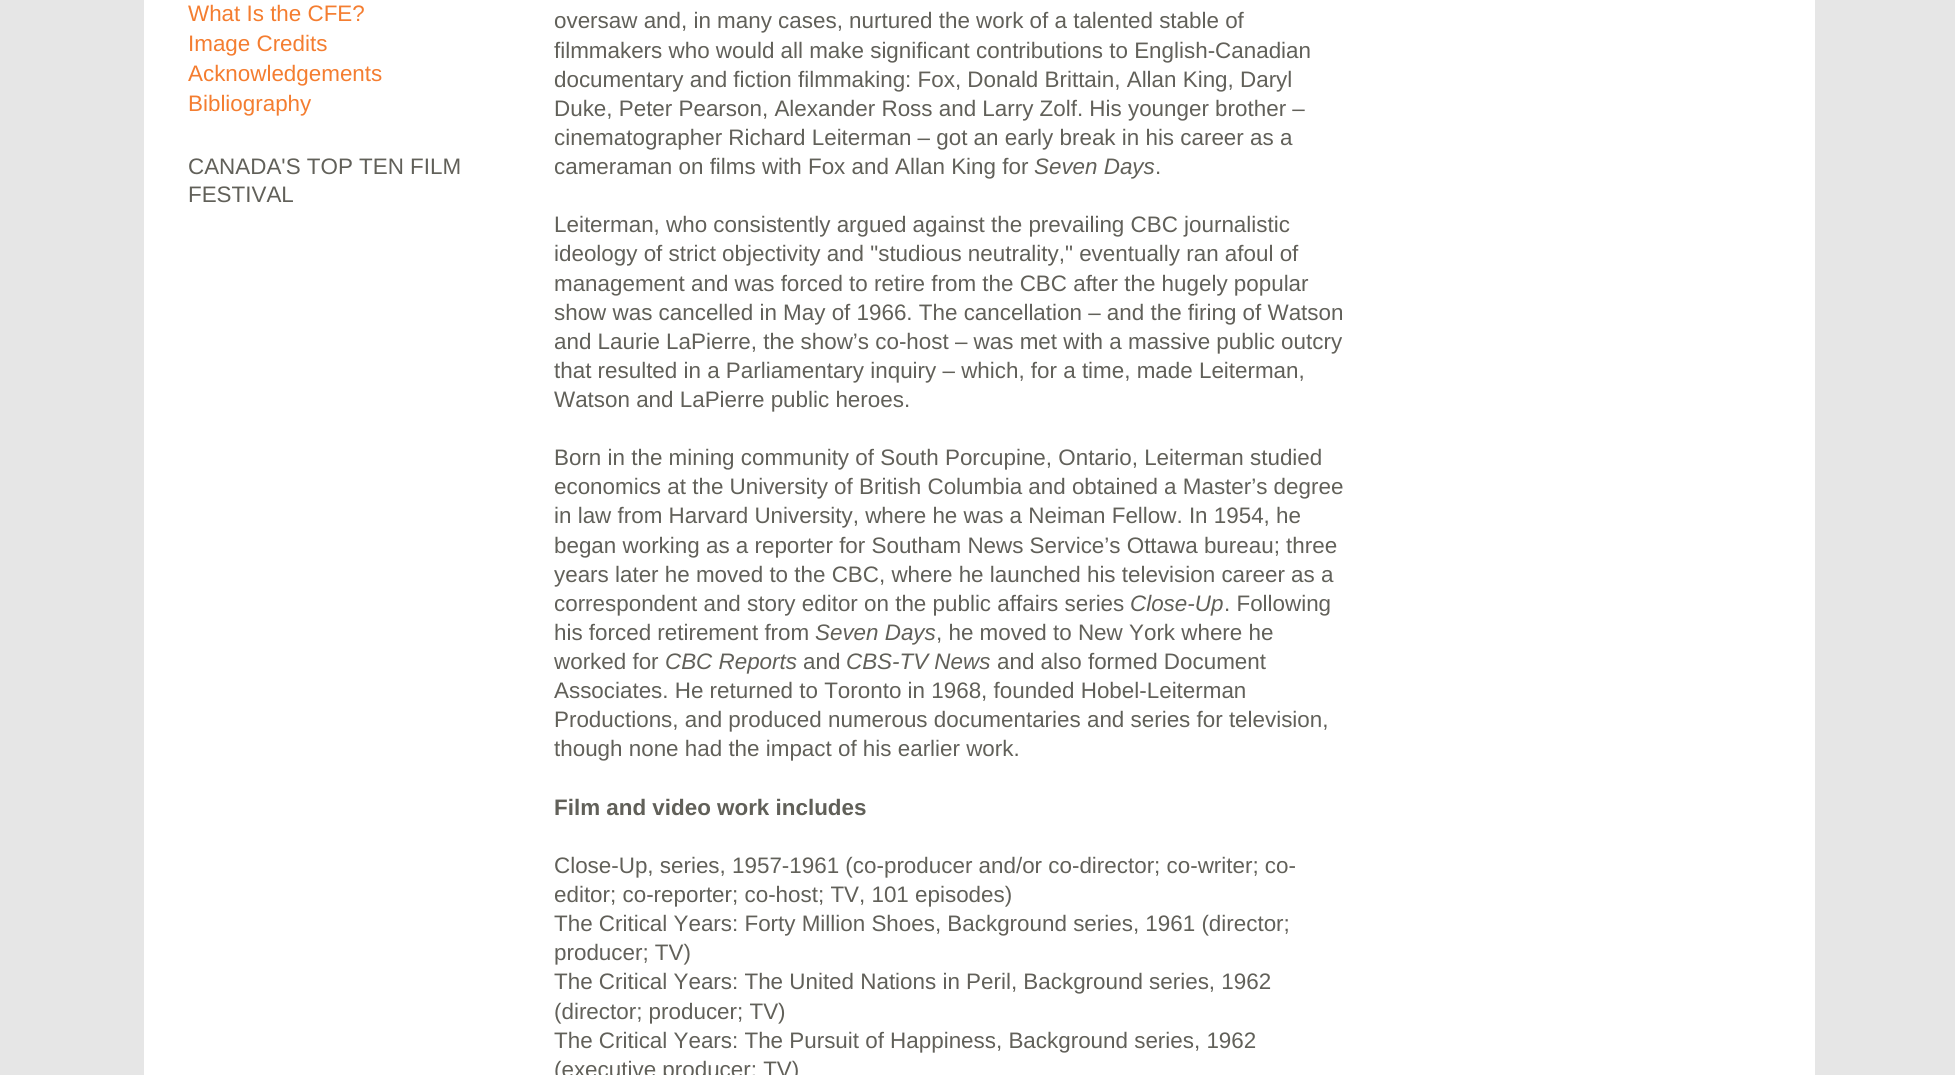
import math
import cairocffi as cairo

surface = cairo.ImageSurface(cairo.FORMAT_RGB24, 1955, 1075)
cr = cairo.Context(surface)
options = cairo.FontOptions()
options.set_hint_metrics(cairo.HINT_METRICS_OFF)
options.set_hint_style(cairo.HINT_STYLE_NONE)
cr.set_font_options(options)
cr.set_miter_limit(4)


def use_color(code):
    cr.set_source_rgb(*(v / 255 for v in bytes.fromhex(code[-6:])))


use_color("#e6e6e6")
cr.paint()
use_color("#ffffff")
cr.rectangle(144, 0, 1671, 1075)
cr.fill()
cr.select_font_face("Liberation Sans")
cr.set_font_size(22.4)
use_color("#f47d30")
cr.move_to(188, 21)
cr.show_text("What Is the CFE?")
cr.move_to(188, 51)
cr.show_text("Image Credits")
cr.move_to(188, 81)
cr.show_text("Acknowledgements")
cr.move_to(188, 111)
cr.show_text("Bibliography")
use_color("#616059")
cr.move_to(188, 174)
cr.show_text("CANADA'S TOP TEN FILM")
cr.move_to(188, 202)
cr.show_text("FESTIVAL")
cr.move_to(554, 28)
cr.show_text("oversaw and, in many cases, nurtured the work of a talented stable of")
cr.move_to(554, 58)
cr.show_text("filmmakers who would all make significant contributions to English-Canadian")
cr.move_to(554, 87)
cr.show_text("documentary and fiction filmmaking: Fox, Donald Brittain, Allan King, Daryl")
cr.move_to(554, 116)
cr.show_text("Duke, Peter Pearson, Alexander Ross and Larry Zolf. His younger brother –")
cr.move_to(554, 145)
cr.show_text("cinematographer Richard Leiterman – got an early break in his career as a")
cr.move_to(554, 174)
cr.show_text("cameraman on films with Fox and Allan King for")
cr.select_font_face("Liberation Sans", cairo.FONT_SLANT_ITALIC)
cr.move_to(1034, 174)
cr.show_text("Seven Days")
cr.select_font_face("Liberation Sans")
cr.move_to(1155, 174)
cr.show_text(".")
cr.move_to(554, 232)
cr.show_text("Leiterman, who consistently argued against the prevailing CBC journalistic")
cr.move_to(554, 261)
cr.show_text("ideology of strict objectivity and \"studious neutrality,\" eventually ran afoul of")
cr.move_to(554, 291)
cr.show_text("management and was forced to retire from the CBC after the hugely popular")
cr.move_to(554, 320)
cr.show_text("show was cancelled in May of 1966. The cancellation – and the firing of Watson")
cr.move_to(554, 349)
cr.show_text("and Laurie LaPierre, the show’s co-host – was met with a massive public outcry")
cr.move_to(554, 378)
cr.show_text("that resulted in a Parliamentary inquiry – which, for a time, made Leiterman,")
cr.move_to(554, 407)
cr.show_text("Watson and LaPierre public heroes.")
cr.move_to(554, 465)
cr.show_text("Born in the mining community of South Porcupine, Ontario, Leiterman studied")
cr.move_to(554, 494)
cr.show_text("economics at the University of British Columbia and obtained a Master’s degree")
cr.move_to(554, 523)
cr.show_text("in law from Harvard University, where he was a Neiman Fellow. In 1954, he")
cr.move_to(554, 553)
cr.show_text("began working as a reporter for Southam News Service’s Ottawa bureau; three")
cr.move_to(554, 582)
cr.show_text("years later he moved to the CBC, where he launched his television career as a")
cr.move_to(554, 611)
cr.show_text("correspondent and story editor on the public affairs series")
cr.select_font_face("Liberation Sans", cairo.FONT_SLANT_ITALIC)
cr.move_to(1130, 611)
cr.show_text("Close-Up")
cr.select_font_face("Liberation Sans")
cr.move_to(1224, 611)
cr.show_text(". Following")
cr.move_to(554, 640)
cr.show_text("his forced retirement from")
cr.select_font_face("Liberation Sans", cairo.FONT_SLANT_ITALIC)
cr.move_to(815, 640)
cr.show_text("Seven Days")
cr.select_font_face("Liberation Sans")
cr.move_to(936, 640)
cr.show_text(", he moved to New York where he")
cr.move_to(554, 669)
cr.show_text("worked for")
cr.select_font_face("Liberation Sans", cairo.FONT_SLANT_ITALIC)
cr.move_to(665, 669)
cr.show_text("CBC Reports")
cr.select_font_face("Liberation Sans")
cr.move_to(803, 669)
cr.show_text("and")
cr.select_font_face("Liberation Sans", cairo.FONT_SLANT_ITALIC)
cr.move_to(846, 669)
cr.show_text("CBS-TV News")
cr.select_font_face("Liberation Sans")
cr.move_to(997, 669)
cr.show_text("and also formed Document")
cr.move_to(554, 698)
cr.show_text("Associates. He returned to Toronto in 1968, founded Hobel-Leiterman")
cr.move_to(554, 727)
cr.show_text("Productions, and produced numerous documentaries and series for television,")
cr.move_to(554, 756)
cr.show_text("though none had the impact of his earlier work.")
cr.select_font_face("Liberation Sans", cairo.FONT_SLANT_NORMAL, cairo.FONT_WEIGHT_BOLD)
cr.move_to(554, 815)
cr.show_text("Film and video work includes")
cr.select_font_face("Liberation Sans")
cr.move_to(554, 873)
cr.show_text("Close-Up, series, 1957-1961 (co-producer and/or co-director; co-writer; co-")
cr.move_to(554, 902)
cr.show_text("editor; co-reporter; co-host; TV, 101 episodes)")
cr.move_to(554, 931)
cr.show_text("The Critical Years: Forty Million Shoes, Background series, 1961 (director;")
cr.move_to(554, 960)
cr.show_text("producer; TV)")
cr.move_to(554, 989)
cr.show_text("The Critical Years: The United Nations in Peril, Background series, 1962")
cr.move_to(554, 1019)
cr.show_text("(director; producer; TV)")
cr.move_to(554, 1048)
cr.show_text("The Critical Years: The Pursuit of Happiness, Background series, 1962")
cr.move_to(554, 1077)
cr.show_text("(executive producer; TV)")
surface.write_to_png("result.png")
